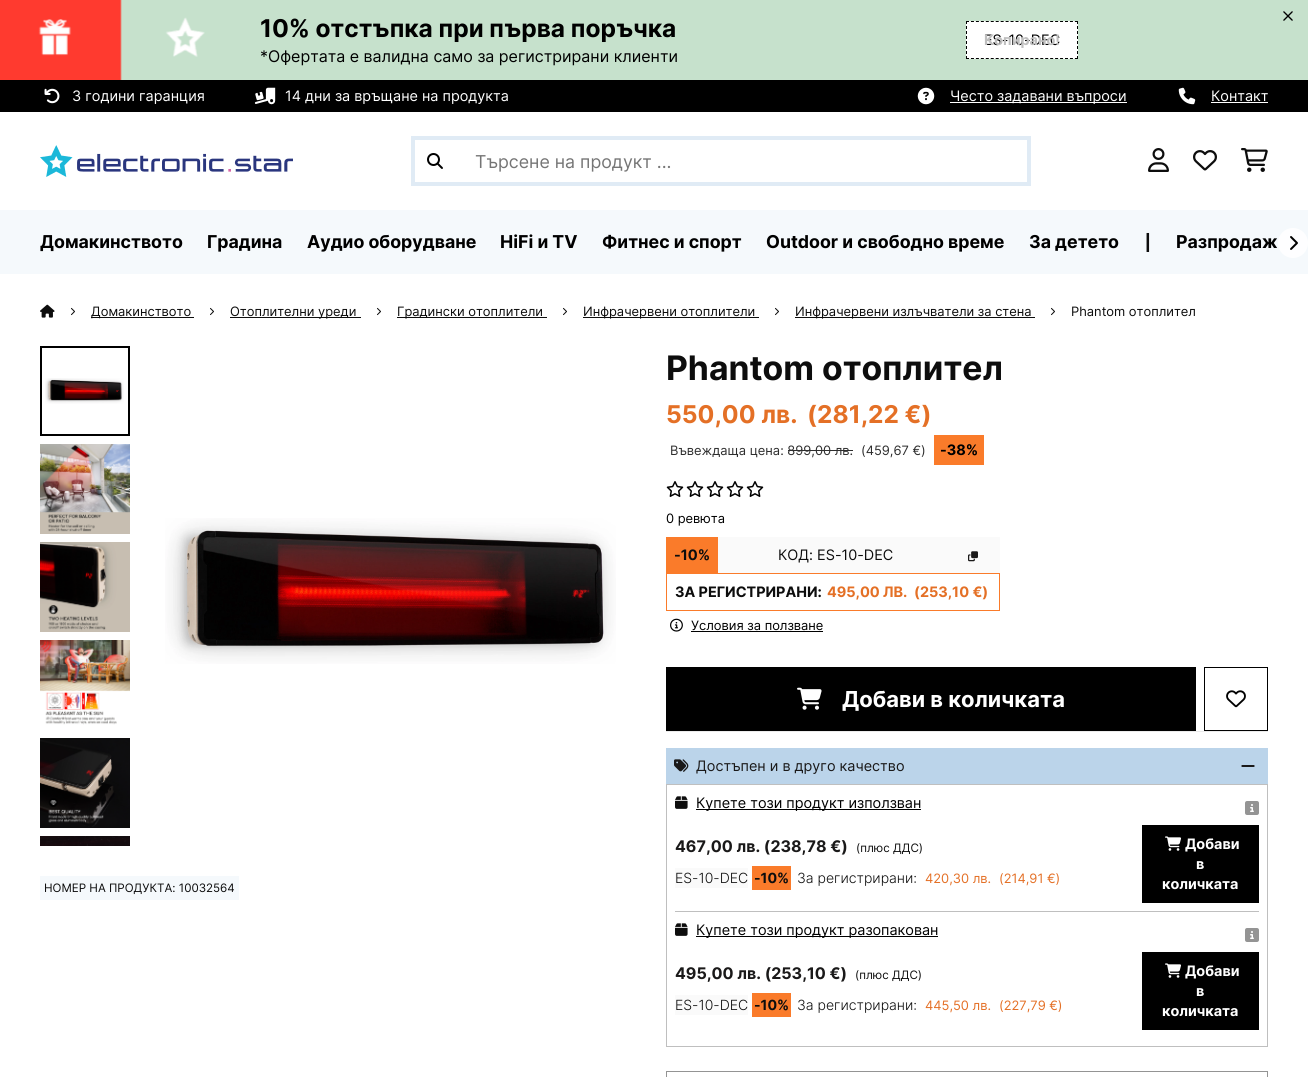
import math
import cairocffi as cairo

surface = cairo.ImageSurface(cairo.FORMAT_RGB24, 1308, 1077)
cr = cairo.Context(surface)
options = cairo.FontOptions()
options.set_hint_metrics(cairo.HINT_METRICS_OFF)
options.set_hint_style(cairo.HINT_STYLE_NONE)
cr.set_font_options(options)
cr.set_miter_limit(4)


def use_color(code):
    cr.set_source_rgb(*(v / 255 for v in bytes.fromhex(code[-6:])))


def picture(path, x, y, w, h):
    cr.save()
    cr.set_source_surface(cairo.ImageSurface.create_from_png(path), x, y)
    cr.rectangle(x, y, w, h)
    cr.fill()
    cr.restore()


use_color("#ffffff")
cr.paint()
use_color("#c6e1cc")
cr.rectangle(205, 0, 1103, 80)
cr.fill()
picture("img1.png", 1283, 11, 10, 10)
picture("img2.png", 0, 0, 205, 80)
cr.select_font_face("Inter", cairo.FONT_SLANT_NORMAL, cairo.FONT_WEIGHT_BOLD)
cr.set_font_size(24.5)
use_color("#000000")
cr.move_to(260, 37)
cr.show_text("10% отстъпка при първа поръчка")
cr.select_font_face("Inter")
cr.set_font_size(16)
cr.move_to(260, 62)
cr.show_text("*Офертата е валидна само за регистрирани клиенти")
use_color("#ffffff")
cr.rectangle(966, 21, 112, 38)
cr.fill()
cr.new_path()
cr.move_to(966, 21.5)
cr.line_to(1078, 21.5)
use_color("#000000")
cr.set_line_width(1)
cr.set_dash([3, 1.95])
cr.stroke()
cr.new_path()
cr.move_to(1077.5, 21)
cr.line_to(1077.5, 59)
cr.set_dash([3, 2])
cr.stroke()
cr.new_path()
cr.move_to(966, 58.5)
cr.line_to(1078, 58.5)
cr.set_dash([3, 1.95])
cr.stroke()
cr.new_path()
cr.move_to(966.5, 21)
cr.line_to(966.5, 59)
cr.set_dash([3, 2])
cr.stroke()
cr.set_font_size(14.4)
cr.move_to(984, 45)
cr.show_text("ES-10-DEC")
cr.select_font_face("Inter", cairo.FONT_SLANT_NORMAL, cairo.FONT_WEIGHT_BOLD)
use_color("#bfbfbf")
cr.move_to(984, 45)
cr.show_text("Копирано!")
use_color("#000000")
cr.rectangle(0, 80, 1308, 32)
cr.fill()
picture("img3.png", 44, 88, 16, 16)
cr.select_font_face("Inter")
use_color("#ffffff")
cr.move_to(72, 101)
cr.show_text("3 години гаранция")
picture("img4.png", 254, 87, 22, 18)
cr.move_to(285, 101)
cr.show_text("14 дни за връщане на продукта")
picture("img5.png", 917, 87, 18, 18)
cr.rectangle(950, 102, 177, 1)
cr.fill()
cr.move_to(950, 101)
cr.show_text("Често задавани въпроси")
picture("img6.png", 1178, 87, 18, 18)
cr.move_to(1211, 101)
cr.show_text("Контакт")
cr.rectangle(1211, 102, 57, 1)
cr.fill()
picture("img7.png", 40, 145, 253, 32)
cr.rectangle(413, 138, 616, 46)
use_color("#e0ebf5")
cr.set_line_width(4)
cr.set_dash([])
cr.stroke()
picture("img8.png", 427, 153, 16, 16)
cr.set_font_size(17.75)
use_color("#757575")
cr.move_to(475, 168)
cr.show_text("Търсене на продукт ...")
picture("img9.png", 1148, 148, 21, 24)
picture("img10.png", 1193, 150, 24, 21)
picture("img11.png", 1241, 148, 27, 24)
use_color("#f5f9fc")
cr.rectangle(0, 210, 1308, 64)
cr.fill()
cr.select_font_face("Inter", cairo.FONT_SLANT_NORMAL, cairo.FONT_WEIGHT_BOLD)
use_color("#000000")
cr.move_to(40, 248)
cr.show_text("Домакинството")
cr.move_to(207, 248)
cr.show_text("Градина")
cr.move_to(307, 248)
cr.show_text("Аудио оборудване")
cr.move_to(500, 248)
cr.show_text("HiFi и TV")
cr.move_to(602, 248)
cr.show_text("Фитнес и спорт")
cr.move_to(766, 248)
cr.show_text("Outdoor и свободно време")
cr.move_to(1029, 248)
cr.show_text("За детето")
cr.select_font_face("DejaVu Sans")
cr.set_font_size(16)
use_color("#0d0d0d")
cr.move_to(1143, 248)
cr.show_text("┃")
cr.select_font_face("Inter", cairo.FONT_SLANT_NORMAL, cairo.FONT_WEIGHT_BOLD)
cr.set_font_size(17.75)
use_color("#000000")
cr.move_to(1176, 248)
cr.show_text("Разпродаж")
cr.set_source_rgba(1, 1, 1, 0.9)
cr.new_path()
cr.arc(1293, 243, 15, 0, 2 * math.pi)
cr.fill()
picture("img12.png", 1290, 236, 8, 14)
picture("img13.png", 40, 304, 15, 14)
picture("img14.png", 71, 307, 4, 9)
use_color("#0d0d0d")
cr.rectangle(91, 317, 103, 1)
cr.fill()
cr.select_font_face("Inter")
cr.set_font_size(12.9)
cr.move_to(91, 316)
cr.show_text("Домакинството")
picture("img14.png", 210, 307, 4, 9)
cr.rectangle(230, 317, 131, 1)
cr.fill()
cr.move_to(230, 316)
cr.show_text("Отоплителни уреди")
picture("img14.png", 377, 307, 4, 9)
cr.rectangle(397, 317, 150, 1)
cr.fill()
cr.move_to(397, 316)
cr.show_text("Градински отоплители")
picture("img14.png", 563, 307, 4, 9)
cr.rectangle(583, 317, 176, 1)
cr.fill()
cr.move_to(583, 316)
cr.show_text("Инфрачервени отоплители")
picture("img14.png", 775, 307, 4, 9)
cr.rectangle(795, 317, 240, 1)
cr.fill()
cr.move_to(795, 316)
cr.show_text("Инфрачервени излъчватели за стена")
picture("img14.png", 1051, 307, 4, 9)
cr.move_to(1071, 316)
cr.show_text("Phantom отоплител")
cr.rectangle(41, 347, 88, 88)
use_color("#000000")
cr.set_line_width(2)
cr.stroke()
picture("img15.png", 45, 378, 79, 26)
picture("img16.png", 40, 444, 90, 90)
picture("img17.png", 40, 542, 90, 90)
picture("img18.png", 40, 640, 90, 85)
picture("img19.png", 40, 738, 90, 90)
picture("img20.png", 40, 836, 90, 10)
picture("img21.png", 165, 518, 451, 146)
use_color("#f5f9fc")
cr.rectangle(40, 876, 199, 24)
cr.fill()
cr.set_font_size(11.6)
use_color("#0d0d0d")
cr.move_to(44, 892)
cr.show_text("НОМЕР НА ПРОДУКТА: 10032564")
cr.select_font_face("Inter", cairo.FONT_SLANT_NORMAL, cairo.FONT_WEIGHT_BOLD)
cr.set_font_size(33.75)
cr.move_to(666, 380)
cr.show_text("Phantom отоплител")
cr.set_font_size(24.5)
use_color("#e47026")
cr.move_to(666, 423)
cr.show_text("550,00 лв.")
cr.move_to(807, 423)
cr.show_text("(281,22 €)")
cr.select_font_face("Inter")
cr.set_font_size(12.9)
use_color("#2e2e2e")
cr.move_to(670, 455)
cr.show_text("Въвеждаща цена: 899,00 лв.")
cr.rectangle(788, 450, 65, 1)
cr.fill()
cr.move_to(861, 455)
cr.show_text("(459,67 €)")
use_color("#fa7b2a")
cr.rectangle(934, 435, 50, 30)
cr.fill()
cr.select_font_face("Inter", cairo.FONT_SLANT_NORMAL, cairo.FONT_WEIGHT_BOLD)
cr.set_font_size(14.4)
use_color("#000000")
cr.move_to(940, 455)
cr.show_text("-38%")
picture("img22.png", 666, 481, 18, 16)
picture("img22.png", 686, 481, 18, 16)
picture("img22.png", 706, 481, 18, 16)
picture("img22.png", 726, 481, 18, 16)
picture("img22.png", 746, 481, 18, 16)
cr.select_font_face("Inter")
cr.set_font_size(12.9)
cr.move_to(666, 523)
cr.show_text("0 ревюта")
use_color("#fa7b2a")
cr.rectangle(666, 537, 52, 36)
cr.fill()
cr.select_font_face("Inter", cairo.FONT_SLANT_NORMAL, cairo.FONT_WEIGHT_BOLD)
cr.set_font_size(14.4)
use_color("#0d0d0d")
cr.move_to(674, 560)
cr.show_text("-10%")
use_color("#fafafa")
cr.rectangle(718, 537, 282, 36)
cr.fill()
cr.select_font_face("Inter")
use_color("#0d0d0d")
cr.move_to(778, 560)
cr.show_text("КОД: ES-10-DEC")
picture("img23.png", 968, 551, 10, 11)
cr.rectangle(666.5, 573.5, 333, 37)
use_color("#fa7b2a")
cr.set_line_width(1)
cr.stroke()
cr.select_font_face("Inter", cairo.FONT_SLANT_NORMAL, cairo.FONT_WEIGHT_BOLD)
use_color("#0d0d0d")
cr.move_to(675, 597)
cr.show_text("ЗА РЕГИСТРИРАНИ:")
use_color("#e47026")
cr.move_to(827, 597)
cr.show_text("495,00 ЛВ.")
cr.move_to(914, 597)
cr.show_text("(253,10 €)")
picture("img24.png", 670, 618, 13, 14)
cr.select_font_face("Inter")
cr.set_font_size(12.9)
use_color("#000000")
cr.move_to(691, 630)
cr.show_text("Условия за ползване")
cr.rectangle(691, 631, 132, 1)
cr.fill()
cr.rectangle(666, 667, 530, 64)
cr.fill()
picture("img25.png", 797, 687, 25, 23)
cr.select_font_face("Inter", cairo.FONT_SLANT_NORMAL, cairo.FONT_WEIGHT_BOLD)
cr.set_font_size(22)
use_color("#ffffff")
cr.move_to(842, 707)
cr.show_text("Добави в количката")
cr.rectangle(1204.5, 667.5, 63, 63)
use_color("#000000")
cr.stroke()
picture("img26.png", 1226, 690, 20, 18)
use_color("#ebebeb")
cr.rectangle(666, 731, 602, 1)
cr.fill()
use_color("#bbd4ea")
cr.rectangle(666, 748, 602, 36)
cr.fill()
picture("img27.png", 674, 759, 15, 13)
cr.select_font_face("Inter")
cr.set_font_size(14.4)
use_color("#1a1919")
cr.move_to(696, 771)
cr.show_text("Достъпен и в друго качество")
picture("img28.png", 1241, 765, 14, 2)
cr.rectangle(666.5, 784.5, 601, 262)
use_color("#bfbfbf")
cr.stroke()
cr.rectangle(675, 911, 584, 1)
cr.fill()
picture("img29.png", 675, 796, 13, 13)
use_color("#000000")
cr.rectangle(696, 809, 225, 1)
cr.fill()
cr.move_to(696, 808)
cr.show_text("Купете този продукт използван")
picture("img30.png", 1245, 801, 14, 14)
cr.select_font_face("Inter", cairo.FONT_SLANT_NORMAL, cairo.FONT_WEIGHT_BOLD)
cr.set_font_size(16)
use_color("#1a1919")
cr.move_to(675, 852)
cr.show_text("467,00 лв. (238,78 €)")
cr.select_font_face("Inter")
cr.set_font_size(11.6)
use_color("#0d0d0d")
cr.move_to(856, 852)
cr.show_text("(плюс ДДС)")
use_color("#fafafa")
cr.rectangle(675, 868, 73, 20)
cr.fill()
cr.select_font_face("Inter Light")
cr.set_font_size(14)
use_color("#0d0d0d")
cr.move_to(675, 883)
cr.show_text("ES-10-DEC")
use_color("#fa7b2a")
cr.rectangle(752, 866, 39, 24)
cr.fill()
cr.select_font_face("Inter", cairo.FONT_SLANT_NORMAL, cairo.FONT_WEIGHT_BOLD)
use_color("#0d0d0d")
cr.move_to(754, 883)
cr.show_text("-10%")
cr.select_font_face("Inter Light")
cr.move_to(797, 883)
cr.show_text("За регистрирани:")
cr.select_font_face("Inter")
cr.set_font_size(12.9)
use_color("#e47026")
cr.move_to(925, 883)
cr.show_text("420,30 лв.")
cr.move_to(999, 883)
cr.show_text("(214,91 €)")
use_color("#000000")
cr.rectangle(1142, 825, 117, 78)
cr.fill()
picture("img31.png", 1165, 836, 16, 15)
cr.select_font_face("Inter", cairo.FONT_SLANT_NORMAL, cairo.FONT_WEIGHT_BOLD)
cr.set_font_size(14.4)
use_color("#ffffff")
cr.move_to(1185, 849)
cr.show_text("Добави")
cr.move_to(1196, 869)
cr.show_text("в")
cr.move_to(1162, 889)
cr.show_text("количката")
picture("img29.png", 675, 923, 13, 13)
use_color("#000000")
cr.rectangle(696, 936, 242, 1)
cr.fill()
cr.select_font_face("Inter")
cr.move_to(696, 935)
cr.show_text("Купете този продукт разопакован")
picture("img30.png", 1245, 928, 14, 14)
cr.select_font_face("Inter", cairo.FONT_SLANT_NORMAL, cairo.FONT_WEIGHT_BOLD)
cr.set_font_size(16)
use_color("#1a1919")
cr.move_to(675, 979)
cr.show_text("495,00 лв. (253,10 €)")
cr.select_font_face("Inter")
cr.set_font_size(11.6)
use_color("#0d0d0d")
cr.move_to(855, 979)
cr.show_text("(плюс ДДС)")
use_color("#fafafa")
cr.rectangle(675, 995, 73, 20)
cr.fill()
cr.select_font_face("Inter Light")
cr.set_font_size(14)
use_color("#0d0d0d")
cr.move_to(675, 1010)
cr.show_text("ES-10-DEC")
use_color("#fa7b2a")
cr.rectangle(752, 993, 39, 24)
cr.fill()
cr.select_font_face("Inter", cairo.FONT_SLANT_NORMAL, cairo.FONT_WEIGHT_BOLD)
use_color("#0d0d0d")
cr.move_to(754, 1010)
cr.show_text("-10%")
cr.select_font_face("Inter Light")
cr.move_to(797, 1010)
cr.show_text("За регистрирани:")
cr.select_font_face("Inter")
cr.set_font_size(12.9)
use_color("#e47026")
cr.move_to(925, 1010)
cr.show_text("445,50 лв.")
cr.move_to(999, 1010)
cr.show_text("(227,79 €)")
use_color("#000000")
cr.rectangle(1142, 952, 117, 78)
cr.fill()
picture("img31.png", 1165, 963, 16, 15)
cr.select_font_face("Inter", cairo.FONT_SLANT_NORMAL, cairo.FONT_WEIGHT_BOLD)
cr.set_font_size(14.4)
use_color("#ffffff")
cr.move_to(1185, 976)
cr.show_text("Добави")
cr.move_to(1196, 996)
cr.show_text("в")
cr.move_to(1162, 1016)
cr.show_text("количката")
cr.rectangle(666.5, 1071.5, 601, 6)
use_color("#949494")
cr.stroke()
surface.write_to_png("result.png")
